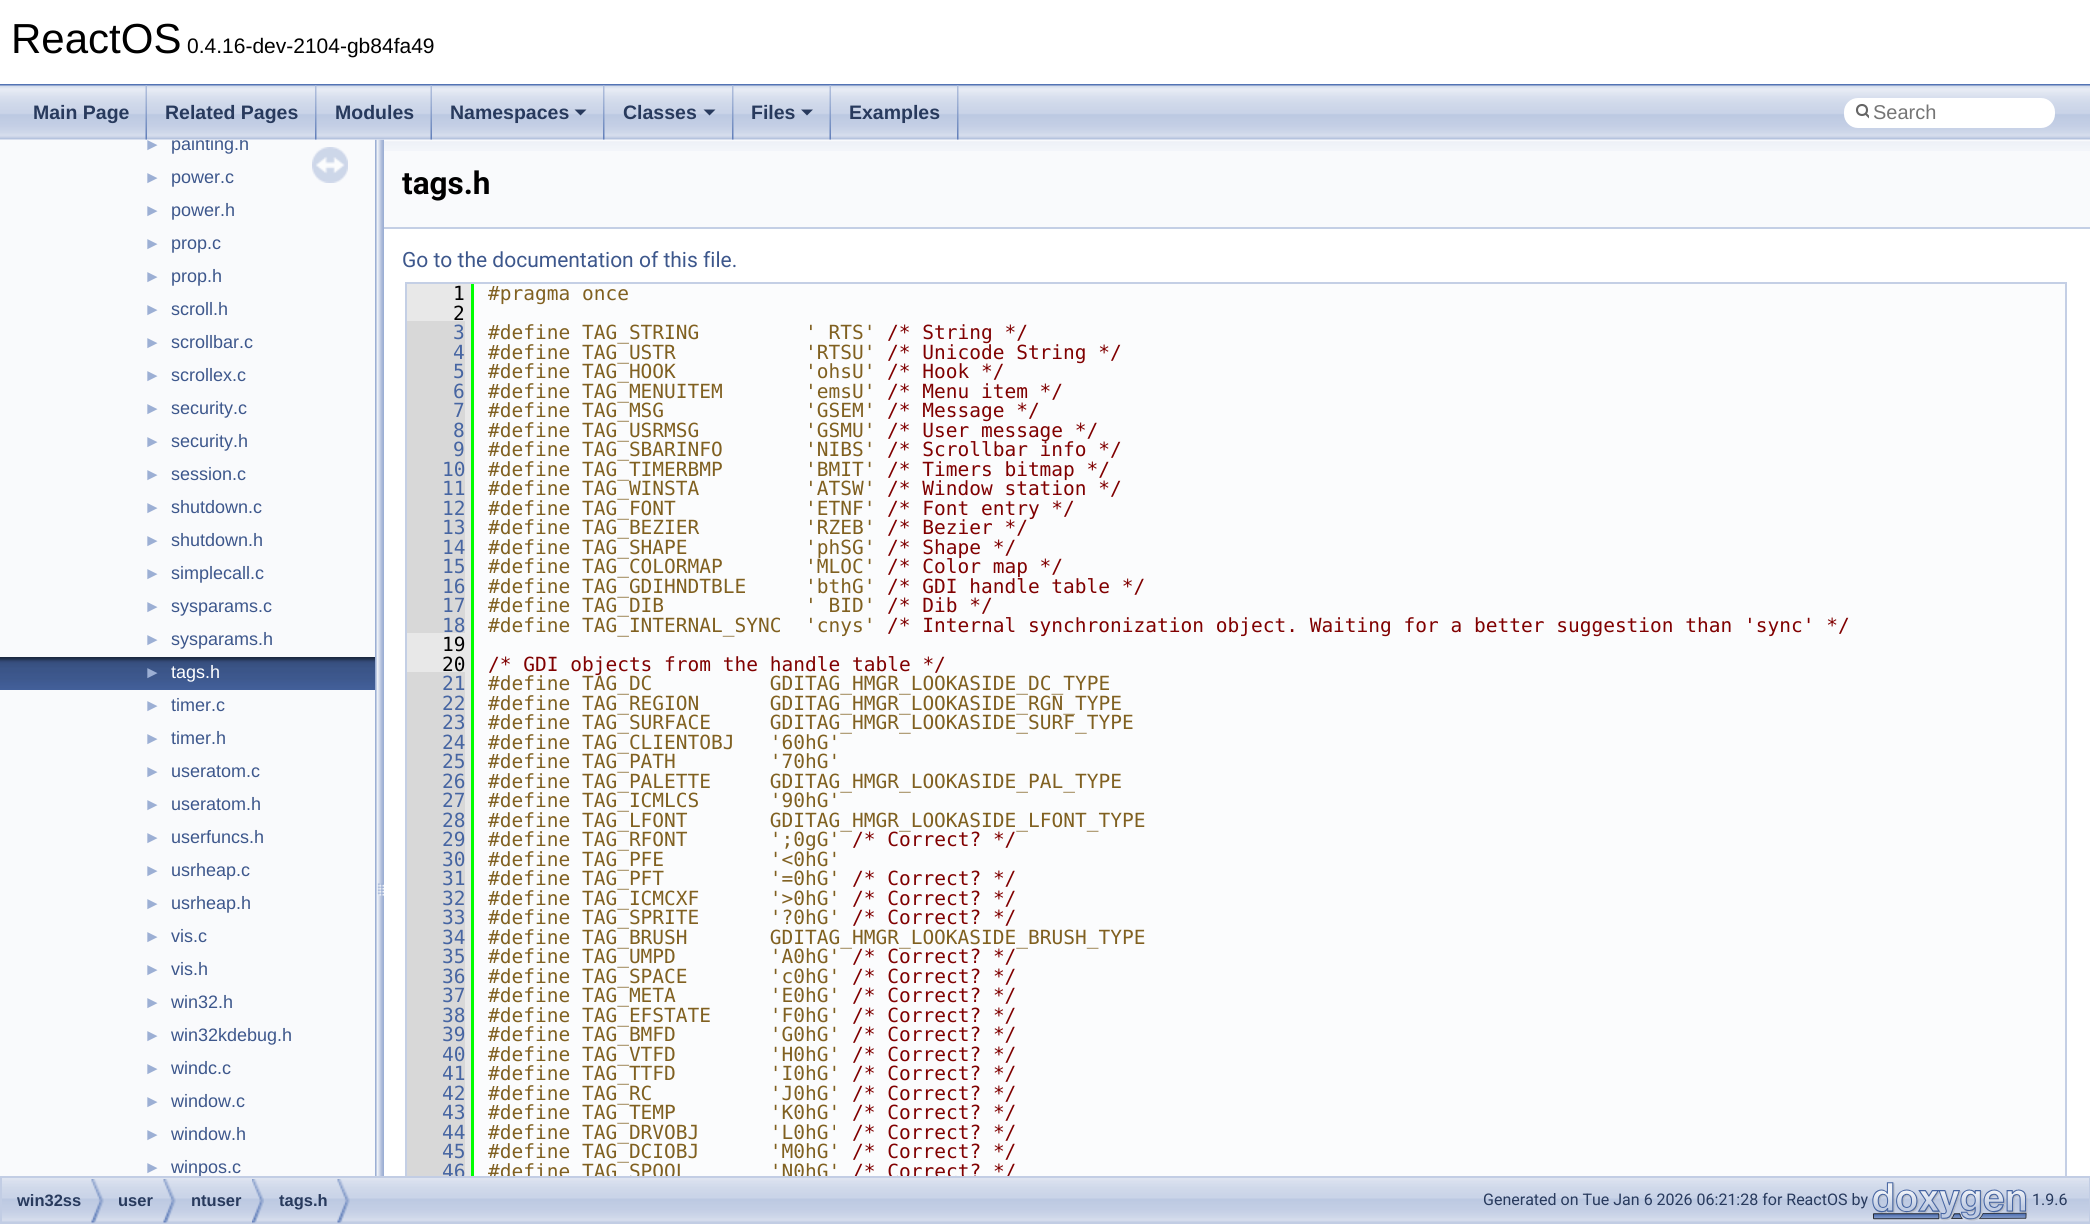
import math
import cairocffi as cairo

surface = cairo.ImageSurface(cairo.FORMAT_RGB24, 2090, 1224)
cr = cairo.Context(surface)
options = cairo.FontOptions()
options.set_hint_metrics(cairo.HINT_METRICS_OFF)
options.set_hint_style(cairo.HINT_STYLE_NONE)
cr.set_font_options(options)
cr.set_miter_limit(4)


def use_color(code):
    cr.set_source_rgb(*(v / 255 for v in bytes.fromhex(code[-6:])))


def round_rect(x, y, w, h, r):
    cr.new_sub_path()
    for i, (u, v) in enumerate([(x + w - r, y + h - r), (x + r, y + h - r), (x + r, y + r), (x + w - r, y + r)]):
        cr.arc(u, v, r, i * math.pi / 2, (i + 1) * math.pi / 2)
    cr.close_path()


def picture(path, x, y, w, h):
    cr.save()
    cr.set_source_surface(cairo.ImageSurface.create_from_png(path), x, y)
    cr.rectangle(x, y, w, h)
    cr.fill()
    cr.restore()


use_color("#ffffff")
cr.paint()
use_color("#5373b4")
cr.rectangle(0, 84, 2090, 2)
cr.fill()
cr.select_font_face("Liberation Sans")
cr.set_font_size(42)
use_color("#000000")
cr.move_to(11, 53)
cr.show_text("ReactOS")
cr.set_font_size(21)
cr.move_to(187, 53)
cr.show_text("0.4.16-dev-2104-gb84fa49")
picture("img6.png", 375, 139, 9, 1037)
picture("img1.png", 0, 85, 2090, 55)
picture("img2.png", 145, 85, 2, 55)
cr.select_font_face("Liberation Sans", cairo.FONT_SLANT_NORMAL, cairo.FONT_WEIGHT_BOLD)
cr.set_font_size(19.5)
use_color("#283a5d")
cr.move_to(33, 119)
cr.show_text("Main Page")
picture("img3.png", 315, 85, 2, 55)
cr.move_to(165, 119)
cr.show_text("Related Pages")
picture("img2.png", 430, 85, 2, 55)
cr.move_to(335, 119)
cr.show_text("Modules")
picture("img3.png", 603, 85, 2, 55)
cr.move_to(450, 119)
cr.show_text("Namespaces")
cr.new_path()
cr.move_to(574.5, 109.5)
cr.line_to(586.5, 109.5)
cr.line_to(580.5, 115.5)
cr.close_path()
cr.fill()
picture("img3.png", 732, 85, 2, 55)
cr.move_to(623, 119)
cr.show_text("Classes")
cr.new_path()
cr.move_to(703.5, 109.5)
cr.line_to(715.5, 109.5)
cr.line_to(709.5, 115.5)
cr.close_path()
cr.fill()
picture("img2.png", 829, 85, 2, 55)
cr.move_to(751, 119)
cr.show_text("Files")
cr.new_path()
cr.move_to(801, 109.5)
cr.line_to(813, 109.5)
cr.line_to(807, 115.5)
cr.close_path()
cr.fill()
picture("img3.png", 957, 85, 2, 55)
cr.move_to(849, 119)
cr.show_text("Examples")
use_color("#ffffff")
round_rect(1844, 98, 211, 30, 14)
cr.fill()
cr.arc(1862, 110, 5, 0, 2 * math.pi)
use_color("#656565")
cr.set_line_width(2.1)
cr.stroke()
cr.save()
cr.rectangle(1854, 98, 15, 28)
cr.clip()
cr.new_path()
cr.move_to(1866, 114)
cr.line_to(1870.5, 118.5)
cr.set_line_cap(cairo.LINE_CAP_ROUND)
cr.stroke()
cr.restore()
cr.select_font_face("Liberation Sans")
cr.set_font_size(20)
use_color("#757575")
cr.move_to(1873, 119)
cr.show_text("Search")
use_color("#f9fafc")
cr.rectangle(0, 140, 375, 1036)
cr.fill()
cr.set_font_size(17)
use_color("#9cafd4")
cr.move_to(144, 150)
cr.show_text("►")
cr.save()
cr.rectangle(0, 140, 375, 1036)
cr.clip()
cr.set_font_size(18)
use_color("#3d578c")
cr.move_to(171, 150)
cr.show_text("painting.h")
cr.restore()
cr.move_to(144, 183)
cr.show_text("►")
cr.set_font_size(18)
use_color("#3d578c")
cr.move_to(171, 183)
cr.show_text("power.c")
cr.set_font_size(17)
use_color("#9cafd4")
cr.move_to(144, 216)
cr.show_text("►")
cr.set_font_size(18)
use_color("#3d578c")
cr.move_to(171, 216)
cr.show_text("power.h")
cr.set_font_size(17)
use_color("#9cafd4")
cr.move_to(144, 249)
cr.show_text("►")
cr.set_font_size(18)
use_color("#3d578c")
cr.move_to(171, 249)
cr.show_text("prop.c")
cr.set_font_size(17)
use_color("#9cafd4")
cr.move_to(144, 282)
cr.show_text("►")
cr.set_font_size(18)
use_color("#3d578c")
cr.move_to(171, 282)
cr.show_text("prop.h")
cr.set_font_size(17)
use_color("#9cafd4")
cr.move_to(144, 315)
cr.show_text("►")
cr.set_font_size(18)
use_color("#3d578c")
cr.move_to(171, 315)
cr.show_text("scroll.h")
cr.set_font_size(17)
use_color("#9cafd4")
cr.move_to(144, 348)
cr.show_text("►")
cr.set_font_size(18)
use_color("#3d578c")
cr.move_to(171, 348)
cr.show_text("scrollbar.c")
cr.set_font_size(17)
use_color("#9cafd4")
cr.move_to(144, 381)
cr.show_text("►")
cr.set_font_size(18)
use_color("#3d578c")
cr.move_to(171, 381)
cr.show_text("scrollex.c")
cr.set_font_size(17)
use_color("#9cafd4")
cr.move_to(144, 414)
cr.show_text("►")
cr.set_font_size(18)
use_color("#3d578c")
cr.move_to(171, 414)
cr.show_text("security.c")
cr.set_font_size(17)
use_color("#9cafd4")
cr.move_to(144, 447)
cr.show_text("►")
cr.set_font_size(18)
use_color("#3d578c")
cr.move_to(171, 447)
cr.show_text("security.h")
cr.set_font_size(17)
use_color("#9cafd4")
cr.move_to(144, 480)
cr.show_text("►")
cr.set_font_size(18)
use_color("#3d578c")
cr.move_to(171, 480)
cr.show_text("session.c")
cr.set_font_size(17)
use_color("#9cafd4")
cr.move_to(144, 513)
cr.show_text("►")
cr.set_font_size(18)
use_color("#3d578c")
cr.move_to(171, 513)
cr.show_text("shutdown.c")
cr.set_font_size(17)
use_color("#9cafd4")
cr.move_to(144, 546)
cr.show_text("►")
cr.set_font_size(18)
use_color("#3d578c")
cr.move_to(171, 546)
cr.show_text("shutdown.h")
cr.set_font_size(17)
use_color("#9cafd4")
cr.move_to(144, 579)
cr.show_text("►")
cr.set_font_size(18)
use_color("#3d578c")
cr.move_to(171, 579)
cr.show_text("simplecall.c")
cr.set_font_size(17)
use_color("#9cafd4")
cr.move_to(144, 612)
cr.show_text("►")
cr.set_font_size(18)
use_color("#3d578c")
cr.move_to(171, 612)
cr.show_text("sysparams.c")
cr.set_font_size(17)
use_color("#9cafd4")
cr.move_to(144, 645)
cr.show_text("►")
cr.set_font_size(18)
use_color("#3d578c")
cr.move_to(171, 645)
cr.show_text("sysparams.h")
picture("img4.png", 0, 657, 375, 33)
cr.set_font_size(17)
use_color("#9cafd4")
cr.move_to(144, 678)
cr.show_text("►")
cr.set_font_size(18)
use_color("#ffffff")
cr.move_to(171, 678)
cr.show_text("tags.h")
cr.set_font_size(17)
use_color("#9cafd4")
cr.move_to(144, 711)
cr.show_text("►")
cr.set_font_size(18)
use_color("#3d578c")
cr.move_to(171, 711)
cr.show_text("timer.c")
cr.set_font_size(17)
use_color("#9cafd4")
cr.move_to(144, 744)
cr.show_text("►")
cr.set_font_size(18)
use_color("#3d578c")
cr.move_to(171, 744)
cr.show_text("timer.h")
cr.set_font_size(17)
use_color("#9cafd4")
cr.move_to(144, 777)
cr.show_text("►")
cr.set_font_size(18)
use_color("#3d578c")
cr.move_to(171, 777)
cr.show_text("useratom.c")
cr.set_font_size(17)
use_color("#9cafd4")
cr.move_to(144, 810)
cr.show_text("►")
cr.set_font_size(18)
use_color("#3d578c")
cr.move_to(171, 810)
cr.show_text("useratom.h")
cr.set_font_size(17)
use_color("#9cafd4")
cr.move_to(144, 843)
cr.show_text("►")
cr.set_font_size(18)
use_color("#3d578c")
cr.move_to(171, 843)
cr.show_text("userfuncs.h")
cr.set_font_size(17)
use_color("#9cafd4")
cr.move_to(144, 876)
cr.show_text("►")
cr.set_font_size(18)
use_color("#3d578c")
cr.move_to(171, 876)
cr.show_text("usrheap.c")
cr.set_font_size(17)
use_color("#9cafd4")
cr.move_to(144, 909)
cr.show_text("►")
cr.set_font_size(18)
use_color("#3d578c")
cr.move_to(171, 909)
cr.show_text("usrheap.h")
cr.set_font_size(17)
use_color("#9cafd4")
cr.move_to(144, 942)
cr.show_text("►")
cr.set_font_size(18)
use_color("#3d578c")
cr.move_to(171, 942)
cr.show_text("vis.c")
cr.set_font_size(17)
use_color("#9cafd4")
cr.move_to(144, 975)
cr.show_text("►")
cr.set_font_size(18)
use_color("#3d578c")
cr.move_to(171, 975)
cr.show_text("vis.h")
cr.set_font_size(17)
use_color("#9cafd4")
cr.move_to(144, 1008)
cr.show_text("►")
cr.set_font_size(18)
use_color("#3d578c")
cr.move_to(171, 1008)
cr.show_text("win32.h")
cr.set_font_size(17)
use_color("#9cafd4")
cr.move_to(144, 1041)
cr.show_text("►")
cr.set_font_size(18)
use_color("#3d578c")
cr.move_to(171, 1041)
cr.show_text("win32kdebug.h")
cr.set_font_size(17)
use_color("#9cafd4")
cr.move_to(144, 1074)
cr.show_text("►")
cr.set_font_size(18)
use_color("#3d578c")
cr.move_to(171, 1074)
cr.show_text("windc.c")
cr.set_font_size(17)
use_color("#9cafd4")
cr.move_to(144, 1107)
cr.show_text("►")
cr.set_font_size(18)
use_color("#3d578c")
cr.move_to(171, 1107)
cr.show_text("window.c")
cr.set_font_size(17)
use_color("#9cafd4")
cr.move_to(144, 1140)
cr.show_text("►")
cr.set_font_size(18)
use_color("#3d578c")
cr.move_to(171, 1140)
cr.show_text("window.h")
cr.set_font_size(17)
use_color("#9cafd4")
cr.move_to(144, 1173)
cr.show_text("►")
cr.set_font_size(18)
use_color("#3d578c")
cr.move_to(171, 1173)
cr.show_text("winpos.c")
picture("img5.png", 312, 147, 36, 36)
use_color("#f9fafc")
cr.rectangle(384, 140, 1706, 87)
cr.fill()
picture("img7.png", 384, 141, 1706, 10)
use_color("#c4cfe5")
cr.rectangle(384, 227, 1706, 2)
cr.fill()
cr.select_font_face("Roboto", cairo.FONT_SLANT_NORMAL, cairo.FONT_WEIGHT_BOLD)
cr.set_font_size(31.5)
use_color("#000000")
cr.move_to(402, 194)
cr.show_text("tags.h")
cr.select_font_face("Roboto")
cr.set_font_size(21)
use_color("#3d578c")
cr.move_to(402, 267)
cr.show_text("Go to the documentation of this file.")
use_color("#fbfcfd")
cr.rectangle(474, 284, 1591, 892)
cr.fill()
cr.rectangle(406, 283, 1660, 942)
use_color("#c4cfe5")
cr.set_line_width(2)
cr.stroke()
use_color("#e8e8e8")
cr.rectangle(407, 284, 64, 37)
cr.fill()
cr.select_font_face("DejaVu Sans Mono")
cr.set_font_size(19.5)
use_color("#000000")
cr.move_to(453, 300)
cr.show_text("1")
use_color("#00ff00")
cr.rectangle(471, 284, 3, 892)
cr.fill()
use_color("#806020")
cr.move_to(488, 300)
cr.show_text("#pragma once")
use_color("#000000")
cr.move_to(453, 320)
cr.show_text("2")
use_color("#d8d8d8")
cr.rectangle(407, 321, 58, 312)
cr.fill()
use_color("#4665a2")
cr.move_to(453, 339)
cr.show_text("3")
use_color("#e8e8e8")
cr.rectangle(465, 321, 6, 312)
cr.fill()
use_color("#806020")
cr.move_to(488, 339)
cr.show_text("#define TAG_STRING         ' RTS'")
use_color("#800000")
cr.move_to(887, 339)
cr.show_text("/* String */")
use_color("#4665a2")
cr.move_to(453, 359)
cr.show_text("4")
use_color("#806020")
cr.move_to(488, 359)
cr.show_text("#define TAG_USTR           'RTSU'")
use_color("#800000")
cr.move_to(887, 359)
cr.show_text("/* Unicode String */")
use_color("#4665a2")
cr.move_to(453, 378)
cr.show_text("5")
use_color("#806020")
cr.move_to(488, 378)
cr.show_text("#define TAG_HOOK           'ohsU'")
use_color("#800000")
cr.move_to(887, 378)
cr.show_text("/* Hook */")
use_color("#4665a2")
cr.move_to(453, 398)
cr.show_text("6")
use_color("#806020")
cr.move_to(488, 398)
cr.show_text("#define TAG_MENUITEM       'emsU'")
use_color("#800000")
cr.move_to(887, 398)
cr.show_text("/* Menu item */")
use_color("#4665a2")
cr.move_to(453, 417)
cr.show_text("7")
use_color("#806020")
cr.move_to(488, 417)
cr.show_text("#define TAG_MSG            'GSEM'")
use_color("#800000")
cr.move_to(887, 417)
cr.show_text("/* Message */")
use_color("#4665a2")
cr.move_to(453, 437)
cr.show_text("8")
use_color("#806020")
cr.move_to(488, 437)
cr.show_text("#define TAG_USRMSG         'GSMU'")
use_color("#800000")
cr.move_to(887, 437)
cr.show_text("/* User message */")
use_color("#4665a2")
cr.move_to(453, 456)
cr.show_text("9")
use_color("#806020")
cr.move_to(488, 456)
cr.show_text("#define TAG_SBARINFO       'NIBS'")
use_color("#800000")
cr.move_to(887, 456)
cr.show_text("/* Scrollbar info */")
use_color("#4665a2")
cr.move_to(442, 476)
cr.show_text("10")
use_color("#806020")
cr.move_to(488, 476)
cr.show_text("#define TAG_TIMERBMP       'BMIT'")
use_color("#800000")
cr.move_to(887, 476)
cr.show_text("/* Timers bitmap */")
use_color("#4665a2")
cr.move_to(442, 495)
cr.show_text("11")
use_color("#806020")
cr.move_to(488, 495)
cr.show_text("#define TAG_WINSTA         'ATSW'")
use_color("#800000")
cr.move_to(887, 495)
cr.show_text("/* Window station */")
use_color("#4665a2")
cr.move_to(442, 515)
cr.show_text("12")
use_color("#806020")
cr.move_to(488, 515)
cr.show_text("#define TAG_FONT           'ETNF'")
use_color("#800000")
cr.move_to(887, 515)
cr.show_text("/* Font entry */")
use_color("#4665a2")
cr.move_to(442, 534)
cr.show_text("13")
use_color("#806020")
cr.move_to(488, 534)
cr.show_text("#define TAG_BEZIER         'RZEB'")
use_color("#800000")
cr.move_to(887, 534)
cr.show_text("/* Bezier */")
use_color("#4665a2")
cr.move_to(442, 554)
cr.show_text("14")
use_color("#806020")
cr.move_to(488, 554)
cr.show_text("#define TAG_SHAPE          'phSG'")
use_color("#800000")
cr.move_to(887, 554)
cr.show_text("/* Shape */")
use_color("#4665a2")
cr.move_to(442, 573)
cr.show_text("15")
use_color("#806020")
cr.move_to(488, 573)
cr.show_text("#define TAG_COLORMAP       'MLOC'")
use_color("#800000")
cr.move_to(887, 573)
cr.show_text("/* Color map */")
use_color("#4665a2")
cr.move_to(442, 593)
cr.show_text("16")
use_color("#806020")
cr.move_to(488, 593)
cr.show_text("#define TAG_GDIHNDTBLE     'bthG'")
use_color("#800000")
cr.move_to(887, 593)
cr.show_text("/* GDI handle table */")
use_color("#4665a2")
cr.move_to(442, 612)
cr.show_text("17")
use_color("#806020")
cr.move_to(488, 612)
cr.show_text("#define TAG_DIB            ' BID'")
use_color("#800000")
cr.move_to(887, 612)
cr.show_text("/* Dib */")
use_color("#4665a2")
cr.move_to(442, 632)
cr.show_text("18")
use_color("#806020")
cr.move_to(488, 632)
cr.show_text("#define TAG_INTERNAL_SYNC  'cnys'")
use_color("#800000")
cr.move_to(887, 632)
cr.show_text("/* Internal synchronization object. Waiting for a better suggestion than 'sync' */")
use_color("#e8e8e8")
cr.rectangle(407, 633, 64, 39)
cr.fill()
use_color("#000000")
cr.move_to(442, 651)
cr.show_text("19")
cr.move_to(442, 671)
cr.show_text("20")
use_color("#800000")
cr.move_to(488, 671)
cr.show_text("/* GDI objects from the handle table */")
use_color("#d8d8d8")
cr.rectangle(407, 672, 58, 504)
cr.fill()
use_color("#4665a2")
cr.move_to(442, 690)
cr.show_text("21")
use_color("#e8e8e8")
cr.rectangle(465, 672, 6, 504)
cr.fill()
use_color("#806020")
cr.move_to(488, 690)
cr.show_text("#define TAG_DC          GDITAG_HMGR_LOOKASIDE_DC_TYPE")
use_color("#4665a2")
cr.move_to(442, 710)
cr.show_text("22")
use_color("#806020")
cr.move_to(488, 710)
cr.show_text("#define TAG_REGION      GDITAG_HMGR_LOOKASIDE_RGN_TYPE")
use_color("#4665a2")
cr.move_to(442, 729)
cr.show_text("23")
use_color("#806020")
cr.move_to(488, 729)
cr.show_text("#define TAG_SURFACE     GDITAG_HMGR_LOOKASIDE_SURF_TYPE")
use_color("#4665a2")
cr.move_to(442, 749)
cr.show_text("24")
use_color("#806020")
cr.move_to(488, 749)
cr.show_text("#define TAG_CLIENTOBJ   '60hG'")
use_color("#4665a2")
cr.move_to(442, 768)
cr.show_text("25")
use_color("#806020")
cr.move_to(488, 768)
cr.show_text("#define TAG_PATH        '70hG'")
use_color("#4665a2")
cr.move_to(442, 788)
cr.show_text("26")
use_color("#806020")
cr.move_to(488, 788)
cr.show_text("#define TAG_PALETTE     GDITAG_HMGR_LOOKASIDE_PAL_TYPE")
use_color("#4665a2")
cr.move_to(442, 807)
cr.show_text("27")
use_color("#806020")
cr.move_to(488, 807)
cr.show_text("#define TAG_ICMLCS      '90hG'")
use_color("#4665a2")
cr.move_to(442, 827)
cr.show_text("28")
use_color("#806020")
cr.move_to(488, 827)
cr.show_text("#define TAG_LFONT       GDITAG_HMGR_LOOKASIDE_LFONT_TYPE")
use_color("#4665a2")
cr.move_to(442, 846)
cr.show_text("29")
use_color("#806020")
cr.move_to(488, 846)
cr.show_text("#define TAG_RFONT       ';0gG'")
use_color("#800000")
cr.move_to(852, 846)
cr.show_text("/* Correct? */")
use_color("#4665a2")
cr.move_to(442, 866)
cr.show_text("30")
use_color("#806020")
cr.move_to(488, 866)
cr.show_text("#define TAG_PFE         '<0hG'")
use_color("#4665a2")
cr.move_to(442, 885)
cr.show_text("31")
use_color("#806020")
cr.move_to(488, 885)
cr.show_text("#define TAG_PFT         '=0hG'")
use_color("#800000")
cr.move_to(852, 885)
cr.show_text("/* Correct? */")
use_color("#4665a2")
cr.move_to(442, 905)
cr.show_text("32")
use_color("#806020")
cr.move_to(488, 905)
cr.show_text("#define TAG_ICMCXF      '>0hG'")
use_color("#800000")
cr.move_to(852, 905)
cr.show_text("/* Correct? */")
use_color("#4665a2")
cr.move_to(442, 924)
cr.show_text("33")
use_color("#806020")
cr.move_to(488, 924)
cr.show_text("#define TAG_SPRITE      '?0hG'")
use_color("#800000")
cr.move_to(852, 924)
cr.show_text("/* Correct? */")
use_color("#4665a2")
cr.move_to(442, 944)
cr.show_text("34")
use_color("#806020")
cr.move_to(488, 944)
cr.show_text("#define TAG_BRUSH       GDITAG_HMGR_LOOKASIDE_BRUSH_TYPE")
use_color("#4665a2")
cr.move_to(442, 963)
cr.show_text("35")
use_color("#806020")
cr.move_to(488, 963)
cr.show_text("#define TAG_UMPD        'A0hG'")
use_color("#800000")
cr.move_to(852, 963)
cr.show_text("/* Correct? */")
use_color("#4665a2")
cr.move_to(442, 983)
cr.show_text("36")
use_color("#806020")
cr.move_to(488, 983)
cr.show_text("#define TAG_SPACE       'c0hG'")
use_color("#800000")
cr.move_to(852, 983)
cr.show_text("/* Correct? */")
use_color("#4665a2")
cr.move_to(442, 1002)
cr.show_text("37")
use_color("#806020")
cr.move_to(488, 1002)
cr.show_text("#define TAG_META        'E0hG'")
use_color("#800000")
cr.move_to(852, 1002)
cr.show_text("/* Correct? */")
use_color("#4665a2")
cr.move_to(442, 1022)
cr.show_text("38")
use_color("#806020")
cr.move_to(488, 1022)
cr.show_text("#define TAG_EFSTATE     'F0hG'")
use_color("#800000")
cr.move_to(852, 1022)
cr.show_text("/* Correct? */")
use_color("#4665a2")
cr.move_to(442, 1041)
cr.show_text("39")
use_color("#806020")
cr.move_to(488, 1041)
cr.show_text("#define TAG_BMFD        'G0hG'")
use_color("#800000")
cr.move_to(852, 1041)
cr.show_text("/* Correct? */")
use_color("#4665a2")
cr.move_to(442, 1061)
cr.show_text("40")
use_color("#806020")
cr.move_to(488, 1061)
cr.show_text("#define TAG_VTFD        'H0hG'")
use_color("#800000")
cr.move_to(852, 1061)
cr.show_text("/* Correct? */")
use_color("#4665a2")
cr.move_to(442, 1080)
cr.show_text("41")
use_color("#806020")
cr.move_to(488, 1080)
cr.show_text("#define TAG_TTFD        'I0hG'")
use_color("#800000")
cr.move_to(852, 1080)
cr.show_text("/* Correct? */")
use_color("#4665a2")
cr.move_to(442, 1100)
cr.show_text("42")
use_color("#806020")
cr.move_to(488, 1100)
cr.show_text("#define TAG_RC          'J0hG'")
use_color("#800000")
cr.move_to(852, 1100)
cr.show_text("/* Correct? */")
use_color("#4665a2")
cr.move_to(442, 1119)
cr.show_text("43")
use_color("#806020")
cr.move_to(488, 1119)
cr.show_text("#define TAG_TEMP        'K0hG'")
use_color("#800000")
cr.move_to(852, 1119)
cr.show_text("/* Correct? */")
use_color("#4665a2")
cr.move_to(442, 1139)
cr.show_text("44")
use_color("#806020")
cr.move_to(488, 1139)
cr.show_text("#define TAG_DRVOBJ      'L0hG'")
use_color("#800000")
cr.move_to(852, 1139)
cr.show_text("/* Correct? */")
use_color("#4665a2")
cr.move_to(442, 1158)
cr.show_text("45")
use_color("#806020")
cr.move_to(488, 1158)
cr.show_text("#define TAG_DCIOBJ      'M0hG'")
use_color("#800000")
cr.move_to(852, 1158)
cr.show_text("/* Correct? */")
use_color("#4665a2")
cr.move_to(442, 1178)
cr.show_text("46")
use_color("#806020")
cr.move_to(488, 1178)
cr.show_text("#define TAG_SPOOL       'N0hG'")
use_color("#800000")
cr.move_to(852, 1178)
cr.show_text("/* Correct? */")
picture("img8.png", 2, 1178, 2087, 44)
cr.rectangle(1, 1177, 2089, 46)
use_color("#c2cde4")
cr.stroke()
picture("img9.png", 91, 1179, 13, 44)
cr.select_font_face("Liberation Sans", cairo.FONT_SLANT_NORMAL, cairo.FONT_WEIGHT_BOLD)
cr.set_font_size(16.5)
use_color("#283a5d")
cr.move_to(17, 1206)
cr.show_text("win32ss")
picture("img9.png", 163, 1179, 13, 44)
cr.move_to(118, 1206)
cr.show_text("user")
picture("img10.png", 252, 1179, 12, 44)
cr.move_to(191, 1206)
cr.show_text("ntuser")
picture("img9.png", 337, 1179, 13, 44)
cr.move_to(279, 1206)
cr.show_text("tags.h")
cr.select_font_face("Roboto")
cr.set_font_size(16)
cr.move_to(1483, 1205)
cr.show_text("Generated on Tue Jan 6 2026 06:21:28 for ReactOS by")
picture("img11.png", 1872, 1182, 156, 39)
cr.move_to(2032, 1205)
cr.show_text("1.9.6")
surface.write_to_png("result.png")
